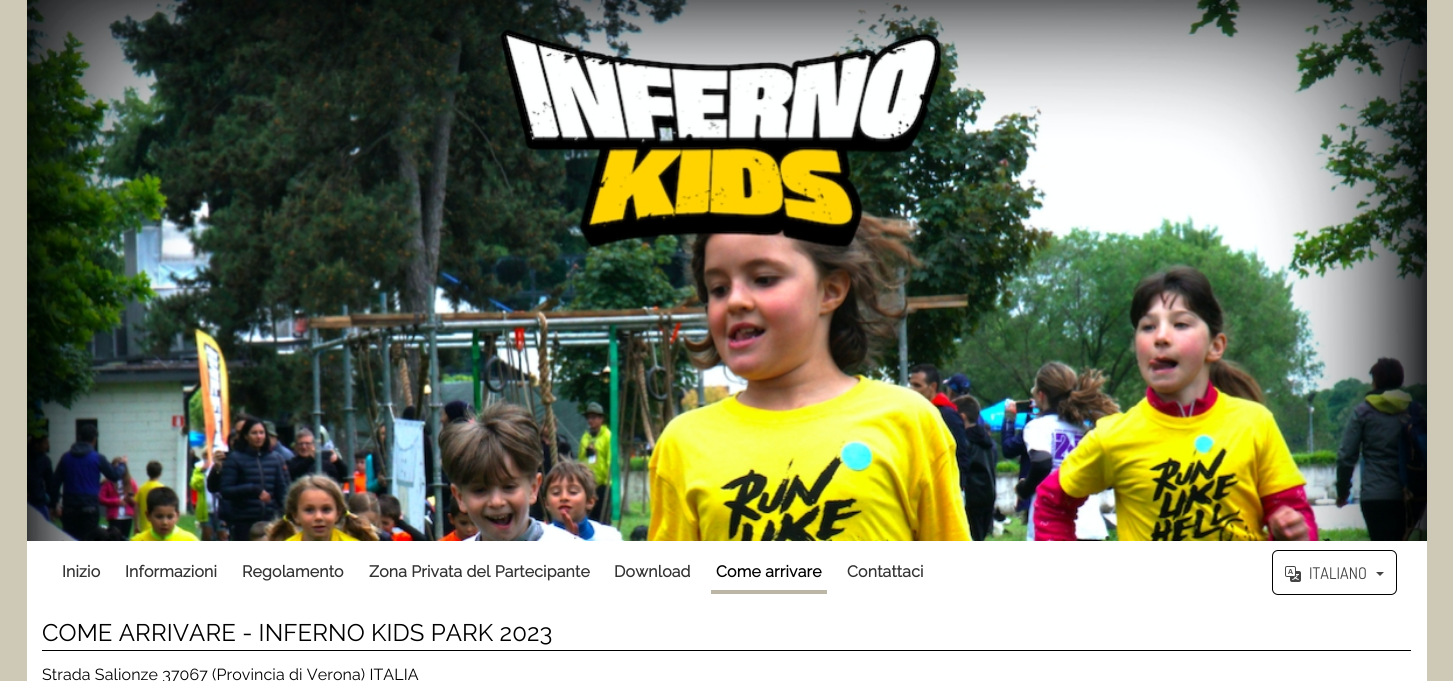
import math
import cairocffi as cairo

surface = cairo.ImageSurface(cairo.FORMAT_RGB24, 1453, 681)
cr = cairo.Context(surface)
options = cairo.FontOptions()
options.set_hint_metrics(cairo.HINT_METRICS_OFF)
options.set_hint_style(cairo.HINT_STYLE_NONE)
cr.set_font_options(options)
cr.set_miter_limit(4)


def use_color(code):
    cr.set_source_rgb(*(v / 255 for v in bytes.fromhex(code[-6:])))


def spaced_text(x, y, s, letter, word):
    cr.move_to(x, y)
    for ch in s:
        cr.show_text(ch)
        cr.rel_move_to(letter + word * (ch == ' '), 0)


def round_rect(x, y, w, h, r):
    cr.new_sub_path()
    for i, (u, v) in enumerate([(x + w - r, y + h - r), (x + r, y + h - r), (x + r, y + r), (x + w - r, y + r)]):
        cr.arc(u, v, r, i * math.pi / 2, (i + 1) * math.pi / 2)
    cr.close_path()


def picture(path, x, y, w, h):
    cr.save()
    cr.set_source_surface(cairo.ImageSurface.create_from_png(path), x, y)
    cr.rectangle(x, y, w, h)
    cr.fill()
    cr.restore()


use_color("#cec8b7")
cr.paint()
picture("img1.png", 27, 0, 1400, 541)
use_color("#ffffff")
cr.rectangle(27, 541, 1400, 140)
cr.fill()
cr.select_font_face("Raleway", cairo.FONT_SLANT_NORMAL, cairo.FONT_WEIGHT_BOLD)
cr.set_font_size(16)
use_color("#333333")
spaced_text(62, 577, "Inizio", 0.1, 0)
spaced_text(125, 577, "Informazioni", 0.1, 0)
spaced_text(242, 577, "Regolamento", 0.1, 0)
spaced_text(369, 577, "Zona Privata del Partecipante", 0.1, 0)
spaced_text(614, 577, "Download", 0.1, 0)
use_color("#bcb6a7")
cr.rectangle(711, 590, 116, 4)
cr.fill()
use_color("#000000")
spaced_text(716, 577, "Come arrivare", 0.1, 0)
use_color("#333333")
spaced_text(847, 577, "Contattaci", 0.1, 0)
round_rect(1272.5, 550.5, 124, 44, 5.5)
use_color("#000000")
cr.set_line_width(1)
cr.stroke()
picture("img2.png", 1285, 566, 16, 16)
cr.select_font_face("Dosis")
use_color("#444444")
spaced_text(1309, 579, "ITALIANO", 0.1, 0)
cr.new_path()
cr.move_to(1376, 572)
cr.line_to(1384, 572)
cr.line_to(1380, 576)
cr.close_path()
cr.fill()
use_color("#000000")
cr.rectangle(42, 650, 1369, 1)
cr.fill()
cr.select_font_face("Raleway Thin")
cr.set_font_size(24)
spaced_text(42, 641, "COME ARRIVARE - INFERNO KIDS PARK 2023", 0.1, 0)
cr.set_font_size(16)
spaced_text(42, 680, "Strada Salionze 37067 (Provincia di Verona) ITALIA", 0.1, 0)
surface.write_to_png("result.png")
